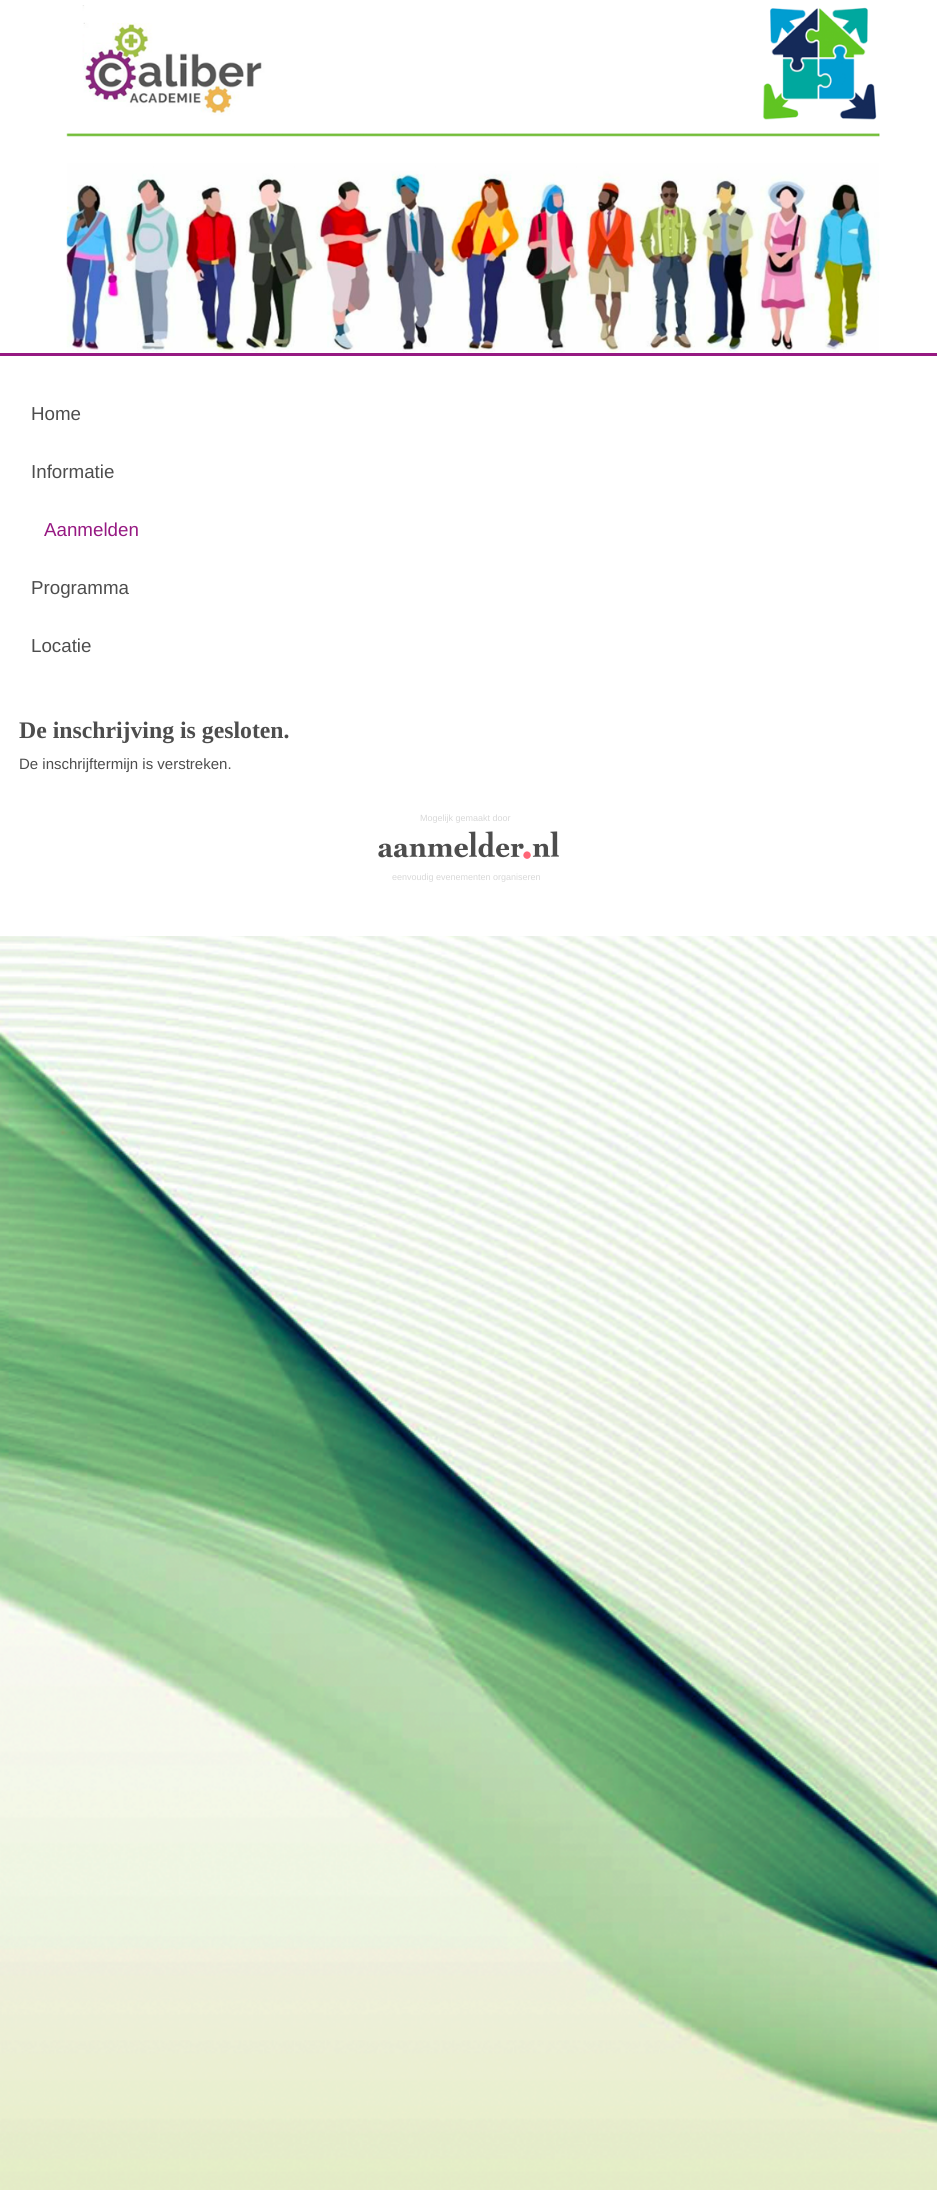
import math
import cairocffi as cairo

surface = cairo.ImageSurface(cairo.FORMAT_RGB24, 937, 2190)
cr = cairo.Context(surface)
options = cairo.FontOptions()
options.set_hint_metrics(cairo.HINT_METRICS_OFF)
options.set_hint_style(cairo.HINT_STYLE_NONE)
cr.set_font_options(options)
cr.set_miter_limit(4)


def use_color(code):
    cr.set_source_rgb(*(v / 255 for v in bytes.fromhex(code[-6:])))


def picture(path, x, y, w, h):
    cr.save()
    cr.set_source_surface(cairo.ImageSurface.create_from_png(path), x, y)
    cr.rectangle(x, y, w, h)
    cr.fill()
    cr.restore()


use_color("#ffffff")
cr.paint()
picture("img1.png", 0, 936, 937, 1254)
use_color("#961982")
cr.rectangle(0, 353, 937, 3)
cr.fill()
picture("img2.png", 66, 5, 814, 348)
cr.select_font_face("Liberation Sans")
cr.set_font_size(18.75)
use_color("#4d4d4d")
cr.move_to(31, 420)
cr.show_text("Home")
cr.move_to(31, 478)
cr.show_text("Informatie")
use_color("#961982")
cr.move_to(44, 536)
cr.show_text("Aanmelden")
use_color("#4d4d4d")
cr.move_to(31, 594)
cr.show_text("Programma")
cr.move_to(31, 652)
cr.show_text("Locatie")
cr.select_font_face("Liberation Serif", cairo.FONT_SLANT_NORMAL, cairo.FONT_WEIGHT_BOLD)
cr.set_font_size(23.75)
cr.move_to(19, 738)
cr.show_text("De inschrijving is gesloten.")
cr.select_font_face("Liberation Sans")
cr.set_font_size(15)
cr.move_to(19, 769)
cr.show_text("De inschrijftermijn is verstreken.")
cr.set_font_size(9)
use_color("#d8d8d8")
cr.move_to(420, 821)
cr.show_text("Mogelijk gemaakt door")
picture("img3.png", 378, 831, 182, 28)
cr.move_to(392, 880)
cr.show_text("eenvoudig evenementen organiseren")
surface.write_to_png("result.png")
